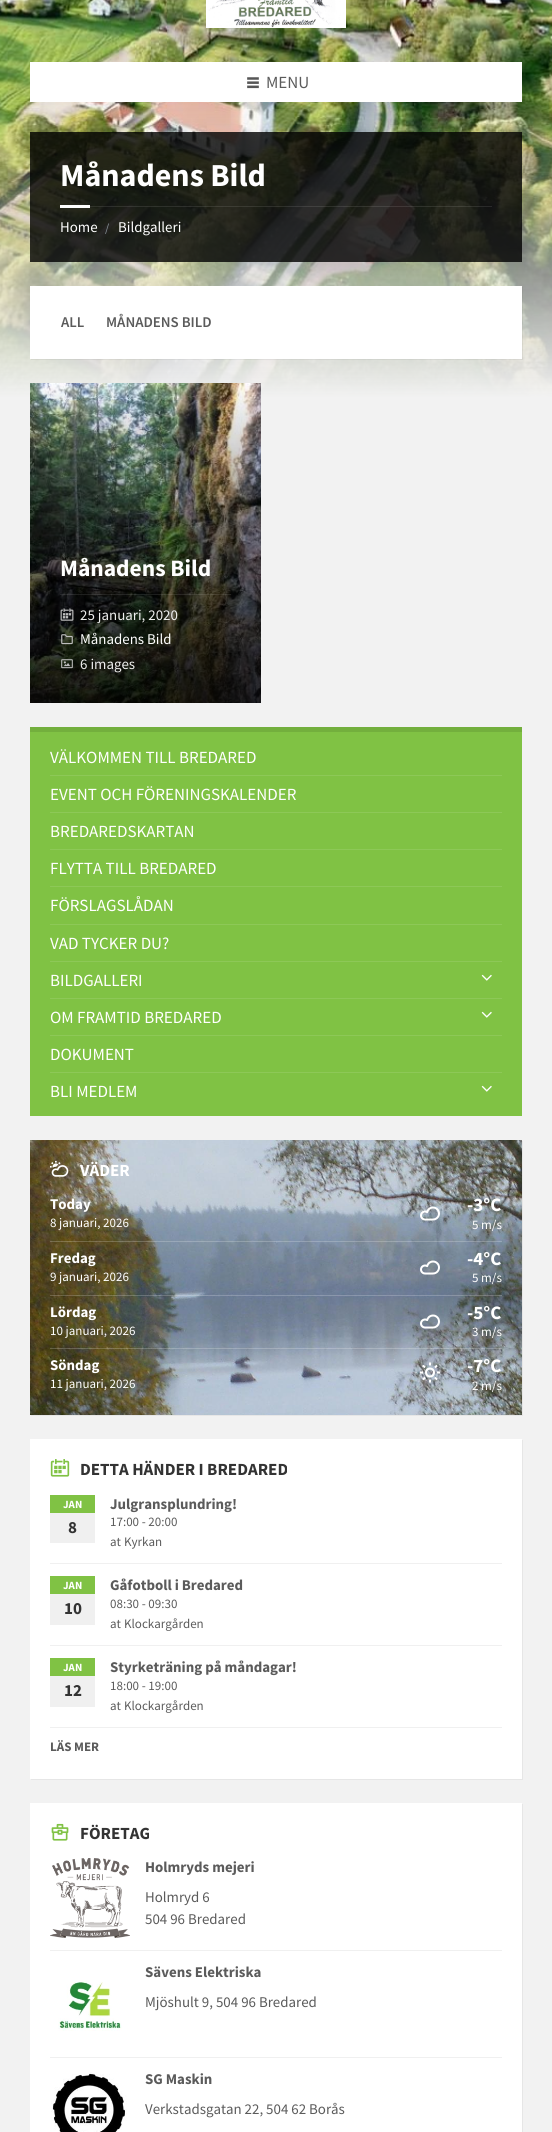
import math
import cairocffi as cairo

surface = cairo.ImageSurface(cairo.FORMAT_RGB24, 552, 2132)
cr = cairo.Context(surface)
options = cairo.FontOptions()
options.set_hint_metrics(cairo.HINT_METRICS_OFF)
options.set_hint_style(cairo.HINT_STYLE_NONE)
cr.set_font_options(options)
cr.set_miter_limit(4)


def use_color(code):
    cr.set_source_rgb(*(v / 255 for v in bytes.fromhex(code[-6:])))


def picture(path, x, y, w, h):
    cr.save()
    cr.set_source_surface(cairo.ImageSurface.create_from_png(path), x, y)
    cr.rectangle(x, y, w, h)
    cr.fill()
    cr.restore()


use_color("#f2f2f2")
cr.paint()
picture("img1.png", 0, 0, 552, 398)
picture("img2.png", 206, 0, 140, 28)
use_color("#ffffff")
cr.rectangle(30, 62, 492, 40)
cr.fill()
picture("img3.png", 247, 77, 12, 12)
cr.select_font_face("Source Sans Pro")
cr.set_font_size(17)
use_color("#5b5b5b")
cr.move_to(266, 88)
cr.show_text("MENU")
cr.set_source_rgba(0, 0, 0, 0.8)
cr.rectangle(30, 132, 492, 130)
cr.fill()
cr.select_font_face("Source Sans Pro", cairo.FONT_SLANT_NORMAL, cairo.FONT_WEIGHT_BOLD)
cr.set_font_size(32)
use_color("#ffffff")
cr.move_to(60, 186)
cr.show_text("Månadens Bild")
cr.set_source_rgba(1, 1, 1, 0.1)
cr.rectangle(90, 206, 402, 1)
cr.fill()
use_color("#ffffff")
cr.rectangle(60, 205, 30, 3)
cr.fill()
cr.select_font_face("Source Sans Pro")
cr.set_font_size(14.9)
cr.move_to(60, 232)
cr.show_text("Home")
cr.set_font_size(12)
use_color("#8a949b")
cr.move_to(105, 232)
cr.show_text("/")
cr.set_font_size(14.9)
use_color("#ffffff")
cr.move_to(118, 232)
cr.show_text("Bildgalleri")
cr.set_source_rgba(0, 0, 0, 0.05)
cr.new_path()
cr.move_to(31, 359)
cr.line_to(31, 360)
cr.line_to(523, 360)
cr.line_to(523, 287)
cr.line_to(522, 287)
cr.line_to(522, 359)
cr.close_path()
cr.fill()
use_color("#ffffff")
cr.rectangle(30, 286, 492, 73)
cr.fill()
cr.select_font_face("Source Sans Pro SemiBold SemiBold")
use_color("#5b5b5b")
cr.move_to(61, 327)
cr.show_text("ALL")
cr.move_to(106, 327)
cr.show_text("MÅNADENS BILD")
picture("img4.png", 30, 383, 231, 320)
cr.select_font_face("Source Sans Pro", cairo.FONT_SLANT_NORMAL, cairo.FONT_WEIGHT_BOLD)
cr.set_font_size(23.5)
use_color("#ffffff")
cr.move_to(60, 576)
cr.show_text("Månadens Bild")
cr.set_source_rgba(1, 1, 1, 0.1)
cr.rectangle(60, 594, 171, 1)
cr.fill()
picture("img5.png", 60, 608, 14, 13)
cr.select_font_face("Source Sans Pro")
cr.set_font_size(14.9)
use_color("#f0f0f0")
cr.move_to(80, 620)
cr.show_text("25 januari, 2020")
picture("img6.png", 61, 634, 12, 11)
use_color("#ffffff")
cr.move_to(80, 644)
cr.show_text("Månadens Bild")
picture("img7.png", 61, 659, 12, 10)
use_color("#f0f0f0")
cr.move_to(80, 669)
cr.show_text("6 images")
use_color("#80c244")
cr.rectangle(30, 732, 492, 384)
cr.fill()
use_color("#73af3d")
cr.rectangle(30, 727, 492, 5)
cr.fill()
cr.set_font_size(17)
use_color("#ffffff")
cr.move_to(50, 763)
cr.show_text("VÄLKOMMEN TILL BREDARED")
use_color("#8dc857")
cr.rectangle(50, 775, 452, 1)
cr.fill()
use_color("#ffffff")
cr.move_to(50, 800)
cr.show_text("EVENT OCH FÖRENINGSKALENDER")
use_color("#8dc857")
cr.rectangle(50, 812, 452, 1)
cr.fill()
use_color("#ffffff")
cr.move_to(50, 837)
cr.show_text("BREDAREDSKARTAN")
use_color("#8dc857")
cr.rectangle(50, 849, 452, 1)
cr.fill()
use_color("#ffffff")
cr.move_to(50, 874)
cr.show_text("FLYTTA TILL BREDARED")
use_color("#8dc857")
cr.rectangle(50, 886, 452, 1)
cr.fill()
use_color("#ffffff")
cr.move_to(50, 911)
cr.show_text("FÖRSLAGSLÅDAN")
use_color("#8dc857")
cr.rectangle(50, 924, 452, 1)
cr.fill()
use_color("#ffffff")
cr.move_to(50, 949)
cr.show_text("VAD TYCKER DU?")
use_color("#8dc857")
cr.rectangle(50, 961, 452, 1)
cr.fill()
use_color("#ffffff")
cr.move_to(50, 986)
cr.show_text("BILDGALLERI")
picture("img8.png", 481, 974, 11, 7)
use_color("#8dc857")
cr.rectangle(50, 998, 452, 1)
cr.fill()
use_color("#ffffff")
cr.move_to(50, 1023)
cr.show_text("OM FRAMTID BREDARED")
picture("img8.png", 481, 1011, 11, 7)
use_color("#8dc857")
cr.rectangle(50, 1035, 452, 1)
cr.fill()
use_color("#ffffff")
cr.move_to(50, 1060)
cr.show_text("DOKUMENT")
use_color("#8dc857")
cr.rectangle(50, 1072, 452, 1)
cr.fill()
use_color("#ffffff")
cr.move_to(50, 1097)
cr.show_text("BLI MEDLEM")
picture("img8.png", 481, 1085, 11, 7)
use_color("#e6e6e6")
cr.new_path()
cr.move_to(31, 1415)
cr.line_to(31, 1416)
cr.line_to(523, 1416)
cr.line_to(523, 1141)
cr.line_to(522, 1141)
cr.line_to(522, 1415)
cr.close_path()
cr.fill()
picture("img9.png", 30, 1140, 492, 275)
picture("img10.png", 50, 1160, 19, 17)
cr.select_font_face("Source Sans Pro", cairo.FONT_SLANT_NORMAL, cairo.FONT_WEIGHT_BOLD)
use_color("#ffffff")
cr.move_to(80, 1176)
cr.show_text("VÄDER")
cr.set_font_size(14.9)
cr.move_to(50, 1209)
cr.show_text("Today")
cr.select_font_face("Source Sans Pro")
cr.set_font_size(13)
cr.move_to(50, 1227)
cr.show_text("8 januari, 2026")
cr.select_font_face("Source Sans Pro", cairo.FONT_SLANT_NORMAL, cairo.FONT_WEIGHT_BOLD)
cr.set_font_size(19)
cr.move_to(467, 1211)
cr.show_text("-3°C")
picture("img11.png", 420, 1206, 20, 15)
cr.select_font_face("Source Sans Pro")
cr.set_font_size(13)
cr.move_to(472, 1229)
cr.show_text("5 m/s")
cr.set_source_rgba(1, 1, 1, 0.2)
cr.rectangle(50, 1241, 452, 1)
cr.fill()
cr.select_font_face("Source Sans Pro", cairo.FONT_SLANT_NORMAL, cairo.FONT_WEIGHT_BOLD)
cr.set_font_size(14.9)
use_color("#ffffff")
cr.move_to(50, 1263)
cr.show_text("Fredag")
cr.select_font_face("Source Sans Pro")
cr.set_font_size(13)
cr.move_to(50, 1281)
cr.show_text("9 januari, 2026")
cr.select_font_face("Source Sans Pro", cairo.FONT_SLANT_NORMAL, cairo.FONT_WEIGHT_BOLD)
cr.set_font_size(19)
cr.move_to(467, 1265)
cr.show_text("-4°C")
picture("img12.png", 420, 1260, 20, 15)
cr.select_font_face("Source Sans Pro")
cr.set_font_size(13)
cr.move_to(472, 1282)
cr.show_text("5 m/s")
cr.set_source_rgba(1, 1, 1, 0.2)
cr.rectangle(50, 1295, 452, 1)
cr.fill()
cr.select_font_face("Source Sans Pro", cairo.FONT_SLANT_NORMAL, cairo.FONT_WEIGHT_BOLD)
cr.set_font_size(14.9)
use_color("#ffffff")
cr.move_to(50, 1317)
cr.show_text("Lördag")
cr.select_font_face("Source Sans Pro")
cr.set_font_size(13)
cr.move_to(50, 1335)
cr.show_text("10 januari, 2026")
cr.select_font_face("Source Sans Pro", cairo.FONT_SLANT_NORMAL, cairo.FONT_WEIGHT_BOLD)
cr.set_font_size(19)
cr.move_to(467, 1319)
cr.show_text("-5°C")
picture("img13.png", 420, 1314, 20, 15)
cr.select_font_face("Source Sans Pro")
cr.set_font_size(13)
cr.move_to(472, 1336)
cr.show_text("3 m/s")
cr.set_source_rgba(1, 1, 1, 0.2)
cr.rectangle(50, 1348, 452, 1)
cr.fill()
cr.select_font_face("Source Sans Pro", cairo.FONT_SLANT_NORMAL, cairo.FONT_WEIGHT_BOLD)
cr.set_font_size(14.9)
use_color("#ffffff")
cr.move_to(50, 1370)
cr.show_text("Söndag")
cr.select_font_face("Source Sans Pro")
cr.set_font_size(13)
cr.move_to(50, 1388)
cr.show_text("11 januari, 2026")
picture("img14.png", 420, 1362, 20, 21)
cr.select_font_face("Source Sans Pro", cairo.FONT_SLANT_NORMAL, cairo.FONT_WEIGHT_BOLD)
cr.set_font_size(19)
cr.move_to(467, 1372)
cr.show_text("-7°C")
cr.select_font_face("Source Sans Pro")
cr.set_font_size(13)
cr.move_to(472, 1390)
cr.show_text("2 m/s")
use_color("#e6e6e6")
cr.new_path()
cr.move_to(31, 1779)
cr.line_to(31, 1780)
cr.line_to(523, 1780)
cr.line_to(523, 1440)
cr.line_to(522, 1440)
cr.line_to(522, 1779)
cr.close_path()
cr.fill()
use_color("#ffffff")
cr.rectangle(30, 1439, 492, 340)
cr.fill()
picture("img15.png", 50, 1459, 20, 18)
cr.select_font_face("Source Sans Pro", cairo.FONT_SLANT_NORMAL, cairo.FONT_WEIGHT_BOLD)
cr.set_font_size(17)
use_color("#333333")
cr.move_to(80, 1475)
cr.show_text("DETTA HÄNDER I BREDARED")
use_color("#80c244")
cr.rectangle(50, 1495, 45, 18)
cr.fill()
cr.set_font_size(11)
use_color("#ffffff")
cr.move_to(63, 1508)
cr.show_text("JAN")
use_color("#f0f0f0")
cr.rectangle(50, 1513, 45, 30)
cr.fill()
cr.set_font_size(17)
use_color("#333333")
cr.move_to(68, 1533)
cr.show_text("8")
cr.set_font_size(14.9)
use_color("#5b5b5b")
cr.move_to(110, 1509)
cr.show_text("Julgransplundring!")
cr.select_font_face("Source Sans Pro")
cr.set_font_size(13)
cr.move_to(110, 1526)
cr.show_text("17:00 - 20:00")
cr.move_to(110, 1546)
cr.show_text("at")
cr.move_to(124, 1546)
cr.show_text("Kyrkan")
use_color("#f0f0f0")
cr.rectangle(50, 1563, 452, 1)
cr.fill()
use_color("#80c244")
cr.rectangle(50, 1576, 45, 18)
cr.fill()
cr.select_font_face("Source Sans Pro", cairo.FONT_SLANT_NORMAL, cairo.FONT_WEIGHT_BOLD)
cr.set_font_size(11)
use_color("#ffffff")
cr.move_to(63, 1589)
cr.show_text("JAN")
use_color("#f0f0f0")
cr.rectangle(50, 1594, 45, 31)
cr.fill()
cr.set_font_size(17)
use_color("#333333")
cr.move_to(64, 1614)
cr.show_text("10")
cr.set_font_size(14.9)
use_color("#5b5b5b")
cr.move_to(110, 1590)
cr.show_text("Gåfotboll i Bredared")
cr.select_font_face("Source Sans Pro")
cr.set_font_size(13)
cr.move_to(110, 1608)
cr.show_text("08:30 - 09:30")
cr.move_to(110, 1628)
cr.show_text("at")
cr.move_to(124, 1628)
cr.show_text("Klockargården")
use_color("#f0f0f0")
cr.rectangle(50, 1645, 452, 1)
cr.fill()
use_color("#80c244")
cr.rectangle(50, 1658, 45, 18)
cr.fill()
cr.select_font_face("Source Sans Pro", cairo.FONT_SLANT_NORMAL, cairo.FONT_WEIGHT_BOLD)
cr.set_font_size(11)
use_color("#ffffff")
cr.move_to(63, 1671)
cr.show_text("JAN")
use_color("#f0f0f0")
cr.rectangle(50, 1676, 45, 31)
cr.fill()
cr.set_font_size(17)
use_color("#333333")
cr.move_to(64, 1696)
cr.show_text("12")
cr.set_font_size(14.9)
use_color("#5b5b5b")
cr.move_to(110, 1672)
cr.show_text("Styrketräning på måndagar!")
cr.select_font_face("Source Sans Pro")
cr.set_font_size(13)
cr.move_to(110, 1690)
cr.show_text("18:00 - 19:00")
cr.move_to(110, 1710)
cr.show_text("at")
cr.move_to(124, 1710)
cr.show_text("Klockargården")
use_color("#f0f0f0")
cr.rectangle(50, 1727, 452, 1)
cr.fill()
cr.select_font_face("Source Sans Pro", cairo.FONT_SLANT_NORMAL, cairo.FONT_WEIGHT_BOLD)
use_color("#5b5b5b")
cr.move_to(50, 1751)
cr.show_text("LÄS MER")
use_color("#e6e6e6")
cr.new_path()
cr.move_to(31, 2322)
cr.line_to(31, 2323)
cr.line_to(523, 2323)
cr.line_to(523, 1804)
cr.line_to(522, 1804)
cr.line_to(522, 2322)
cr.close_path()
cr.fill()
use_color("#ffffff")
cr.rectangle(30, 1803, 492, 329)
cr.fill()
picture("img16.png", 51, 1823, 18, 18)
cr.set_font_size(17)
use_color("#333333")
cr.move_to(80, 1839)
cr.show_text("FÖRETAG")
picture("img17.png", 50, 1858, 80, 80)
cr.set_font_size(14.9)
use_color("#5b5b5b")
cr.move_to(145, 1872)
cr.show_text("Holmryds mejeri")
cr.select_font_face("Source Sans Pro")
cr.move_to(145, 1902)
cr.show_text("Holmryd 6")
cr.move_to(145, 1924)
cr.show_text("504 96 Bredared")
use_color("#f0f0f0")
cr.rectangle(50, 1950, 452, 1)
cr.fill()
picture("img18.png", 58, 1980, 64, 51)
cr.select_font_face("Source Sans Pro", cairo.FONT_SLANT_NORMAL, cairo.FONT_WEIGHT_BOLD)
use_color("#5b5b5b")
cr.move_to(145, 1977)
cr.show_text("Sävens Elektriska")
cr.select_font_face("Source Sans Pro")
cr.move_to(145, 2007)
cr.show_text("Mjöshult 9, 504 96 Bredared")
use_color("#f0f0f0")
cr.rectangle(50, 2057, 452, 1)
cr.fill()
picture("img19.png", 51, 2072, 76, 60)
cr.select_font_face("Source Sans Pro", cairo.FONT_SLANT_NORMAL, cairo.FONT_WEIGHT_BOLD)
use_color("#5b5b5b")
cr.move_to(145, 2084)
cr.show_text("SG Maskin")
cr.select_font_face("Source Sans Pro")
cr.move_to(145, 2114)
cr.show_text("Verkstadsgatan 22, 504 62 Borås")
surface.write_to_png("result.png")
